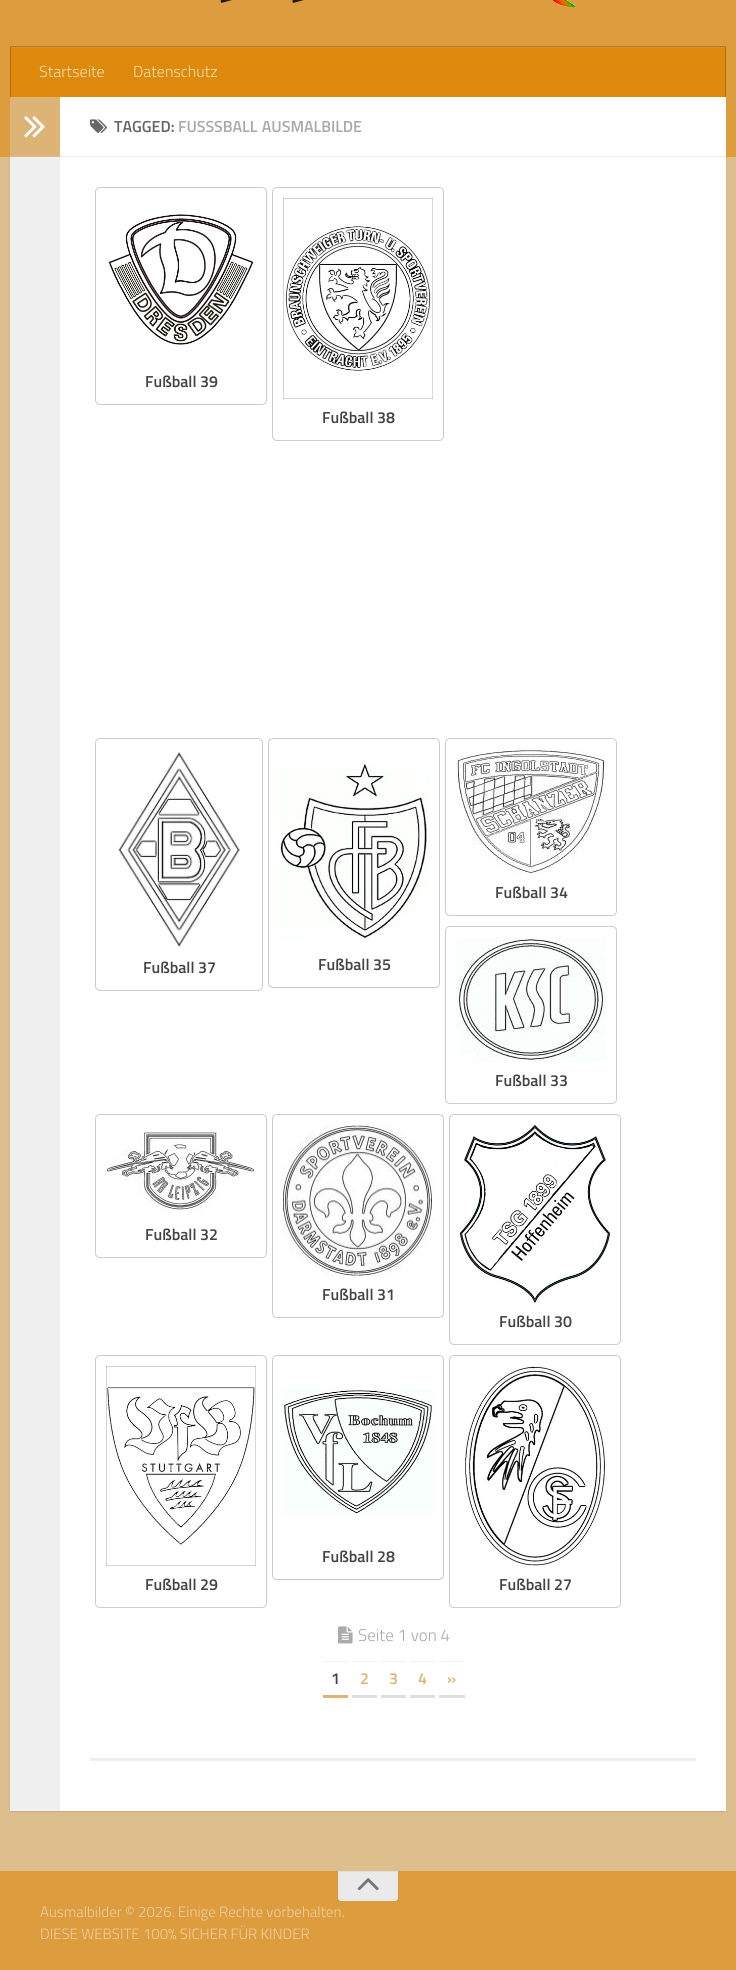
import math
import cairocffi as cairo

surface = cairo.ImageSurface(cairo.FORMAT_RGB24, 736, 1970)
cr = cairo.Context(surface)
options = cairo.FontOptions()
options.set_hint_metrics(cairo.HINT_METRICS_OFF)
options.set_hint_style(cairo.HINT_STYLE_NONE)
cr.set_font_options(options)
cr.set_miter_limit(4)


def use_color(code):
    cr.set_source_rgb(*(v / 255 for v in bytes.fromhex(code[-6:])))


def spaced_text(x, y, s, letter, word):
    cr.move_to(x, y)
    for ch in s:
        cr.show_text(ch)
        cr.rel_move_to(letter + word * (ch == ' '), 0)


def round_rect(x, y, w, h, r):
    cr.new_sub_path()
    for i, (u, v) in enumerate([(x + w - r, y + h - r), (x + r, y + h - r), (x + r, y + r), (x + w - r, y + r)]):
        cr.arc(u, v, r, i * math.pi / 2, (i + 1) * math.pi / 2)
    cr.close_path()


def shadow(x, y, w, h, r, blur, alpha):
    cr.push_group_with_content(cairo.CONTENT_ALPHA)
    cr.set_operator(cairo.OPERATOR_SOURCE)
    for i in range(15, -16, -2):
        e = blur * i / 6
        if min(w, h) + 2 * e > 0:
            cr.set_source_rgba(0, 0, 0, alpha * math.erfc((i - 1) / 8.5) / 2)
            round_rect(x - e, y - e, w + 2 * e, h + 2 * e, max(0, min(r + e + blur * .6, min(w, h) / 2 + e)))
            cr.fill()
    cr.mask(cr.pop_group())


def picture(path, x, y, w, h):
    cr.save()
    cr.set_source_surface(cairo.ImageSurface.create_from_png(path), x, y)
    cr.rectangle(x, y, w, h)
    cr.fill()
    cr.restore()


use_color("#ddbf8d")
cr.paint()
use_color("#000000")
shadow(10, 98, 716, 1714, 0, 0.5, 0.1)
use_color("#dd9d3e")
cr.rectangle(0, 0, 736, 157)
cr.fill()
picture("img1.png", 220, 0, 356, 7)
use_color("#b17e32")
cr.rectangle(10, 46, 716, 1)
cr.fill()
use_color("#dd890b")
cr.rectangle(11, 48, 714, 49)
cr.fill()
use_color("#df8f17")
cr.rectangle(10, 47, 716, 1)
cr.fill()
use_color("#b16e09")
cr.rectangle(725, 47, 1, 50)
cr.fill()
use_color("#b57515")
cr.rectangle(725, 47, 1, 1)
cr.fill()
use_color("#b16e09")
cr.rectangle(10, 47, 1, 50)
cr.fill()
use_color("#b57515")
cr.rectangle(10, 47, 1, 1)
cr.fill()
cr.select_font_face("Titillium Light")
cr.set_font_size(16)
use_color("#f5dcb6")
cr.move_to(39, 77)
cr.show_text("Startseite")
cr.move_to(133, 77)
cr.show_text("Datenschutz")
use_color("#ffffff")
cr.rectangle(60, 97, 666, 1714)
cr.fill()
use_color("#f0f0f0")
cr.rectangle(10, 157, 50, 1654)
cr.fill()
use_color("#ddb475")
cr.rectangle(10, 97, 50, 59)
cr.fill()
use_color("#e0bc83")
cr.rectangle(10, 156, 50, 1)
cr.fill()
picture("img2.png", 24, 116, 21, 22)
use_color("#eeeeee")
cr.rectangle(60, 156, 666, 1)
cr.fill()
picture("img3.png", 90, 119, 17, 14)
cr.select_font_face("Titillium SemiBold")
use_color("#666666")
cr.move_to(114, 132)
cr.show_text("TAGGED:")
use_color("#aaaaaa")
cr.move_to(178, 132)
cr.show_text("FUSS")
spaced_text(214, 132, "SBALL AUSMALBILDE", 0, 1)
round_rect(95.5, 187.5, 171, 217, 4.5)
use_color("#cccccc")
cr.set_line_width(1)
cr.stroke()
picture("img4.png", 108, 214, 146, 131)
use_color("#444444")
cr.move_to(145, 387)
cr.show_text("Fußball 39")
round_rect(272.5, 187.5, 171, 253, 4.5)
use_color("#cccccc")
cr.stroke()
picture("img5.png", 283, 198, 150, 201)
use_color("#444444")
cr.move_to(322, 423)
cr.show_text("Fußball 38")
round_rect(445.5, 738.5, 171, 177, 4.5)
use_color("#cccccc")
cr.stroke()
picture("img6.png", 456, 749, 150, 125)
use_color("#444444")
cr.move_to(495, 898)
cr.show_text("Fußball 34")
round_rect(95.5, 738.5, 167, 252, 4.5)
use_color("#cccccc")
cr.stroke()
picture("img7.png", 118, 752, 122, 195)
use_color("#444444")
cr.move_to(143, 973)
cr.show_text("Fußball 37")
round_rect(268.5, 738.5, 171, 249, 4.5)
use_color("#cccccc")
cr.stroke()
picture("img8.png", 279, 760, 150, 180)
use_color("#444444")
cr.move_to(318, 970)
cr.show_text("Fußball 35")
round_rect(445.5, 926.5, 171, 177, 4.5)
use_color("#cccccc")
cr.stroke()
picture("img9.png", 456, 937, 150, 125)
use_color("#444444")
cr.move_to(495, 1086)
cr.show_text("Fußball 33")
round_rect(95.5, 1114.5, 171, 143, 4.5)
use_color("#cccccc")
cr.stroke()
picture("img10.png", 106, 1125, 150, 88)
use_color("#444444")
cr.move_to(145, 1240)
cr.show_text("Fußball 32")
round_rect(272.5, 1114.5, 171, 203, 4.5)
use_color("#cccccc")
cr.stroke()
picture("img11.png", 283, 1125, 150, 151)
use_color("#444444")
cr.move_to(322, 1300)
cr.show_text("Fußball 31")
round_rect(449.5, 1114.5, 171, 230, 4.5)
use_color("#cccccc")
cr.stroke()
picture("img12.png", 460, 1125, 150, 178)
use_color("#444444")
cr.move_to(499, 1327)
cr.show_text("Fußball 30")
round_rect(272.5, 1355.5, 171, 224, 4.5)
use_color("#cccccc")
cr.stroke()
picture("img13.png", 283, 1389, 150, 126)
use_color("#444444")
cr.move_to(322, 1562)
cr.show_text("Fußball 28")
round_rect(95.5, 1355.5, 171, 252, 4.5)
use_color("#cccccc")
cr.stroke()
picture("img14.png", 106, 1366, 150, 200)
use_color("#444444")
cr.move_to(145, 1590)
cr.show_text("Fußball 29")
round_rect(449.5, 1355.5, 171, 252, 4.5)
use_color("#cccccc")
cr.stroke()
picture("img15.png", 465, 1366, 140, 200)
use_color("#444444")
cr.move_to(499, 1590)
cr.show_text("Fußball 27")
picture("img16.png", 338, 1626, 15, 18)
cr.select_font_face("Titillium Light")
cr.set_font_size(17)
use_color("#aaaaaa")
cr.move_to(358, 1641)
cr.show_text("Seite 1 von 4")
cr.select_font_face("Titillium SemiBold")
cr.set_font_size(16)
use_color("#444444")
cr.move_to(331, 1684)
cr.show_text("1")
use_color("#f1f1f1")
cr.rectangle(323, 1661, 25, 1)
cr.fill()
use_color("#ddb475")
cr.rectangle(323, 1695, 25, 3)
cr.fill()
cr.move_to(360, 1684)
cr.show_text("2")
use_color("#f1f1f1")
cr.rectangle(352, 1661, 25, 1)
cr.fill()
use_color("#dddddd")
cr.rectangle(352, 1695, 25, 3)
cr.fill()
use_color("#ddb475")
cr.move_to(389, 1684)
cr.show_text("3")
use_color("#f1f1f1")
cr.rectangle(381, 1661, 25, 1)
cr.fill()
use_color("#dddddd")
cr.rectangle(381, 1695, 25, 3)
cr.fill()
use_color("#ddb475")
cr.move_to(418, 1684)
cr.show_text("4")
use_color("#f1f1f1")
cr.rectangle(410, 1661, 25, 1)
cr.fill()
use_color("#dddddd")
cr.rectangle(410, 1695, 25, 3)
cr.fill()
use_color("#ddb475")
cr.move_to(447, 1684)
cr.show_text("»")
use_color("#f1f1f1")
cr.rectangle(439, 1661, 26, 1)
cr.fill()
use_color("#dddddd")
cr.rectangle(439, 1695, 26, 3)
cr.fill()
use_color("#eeeeee")
cr.rectangle(90, 1758, 606, 3)
cr.fill()
use_color("#dd9d3e")
cr.rectangle(0, 1871, 736, 99)
cr.fill()
use_color("#eaeaea")
cr.new_path()
cr.move_to(338, 1871)
cr.line_to(398, 1871)
cr.line_to(398, 1898)
cr.curve_to(398, 1899.5, 396.5, 1901, 395, 1901)
cr.line_to(341, 1901)
cr.curve_to(339.5, 1901, 338, 1899.5, 338, 1898)
cr.close_path()
cr.fill()
use_color("#dedede")
cr.rectangle(338, 1871, 60, 1)
cr.fill()
picture("img17.png", 357, 1878, 22, 13)
cr.select_font_face("Titillium Light")
cr.set_font_size(15)
use_color("#eece9f")
cr.move_to(40, 1917)
cr.show_text("Ausmalbilder © 2026. Einige Rechte vorbehalten.")
cr.move_to(40, 1939)
cr.show_text("DIESE WEBSITE 100% SICHER FÜR KINDER")
surface.write_to_png("result.png")
